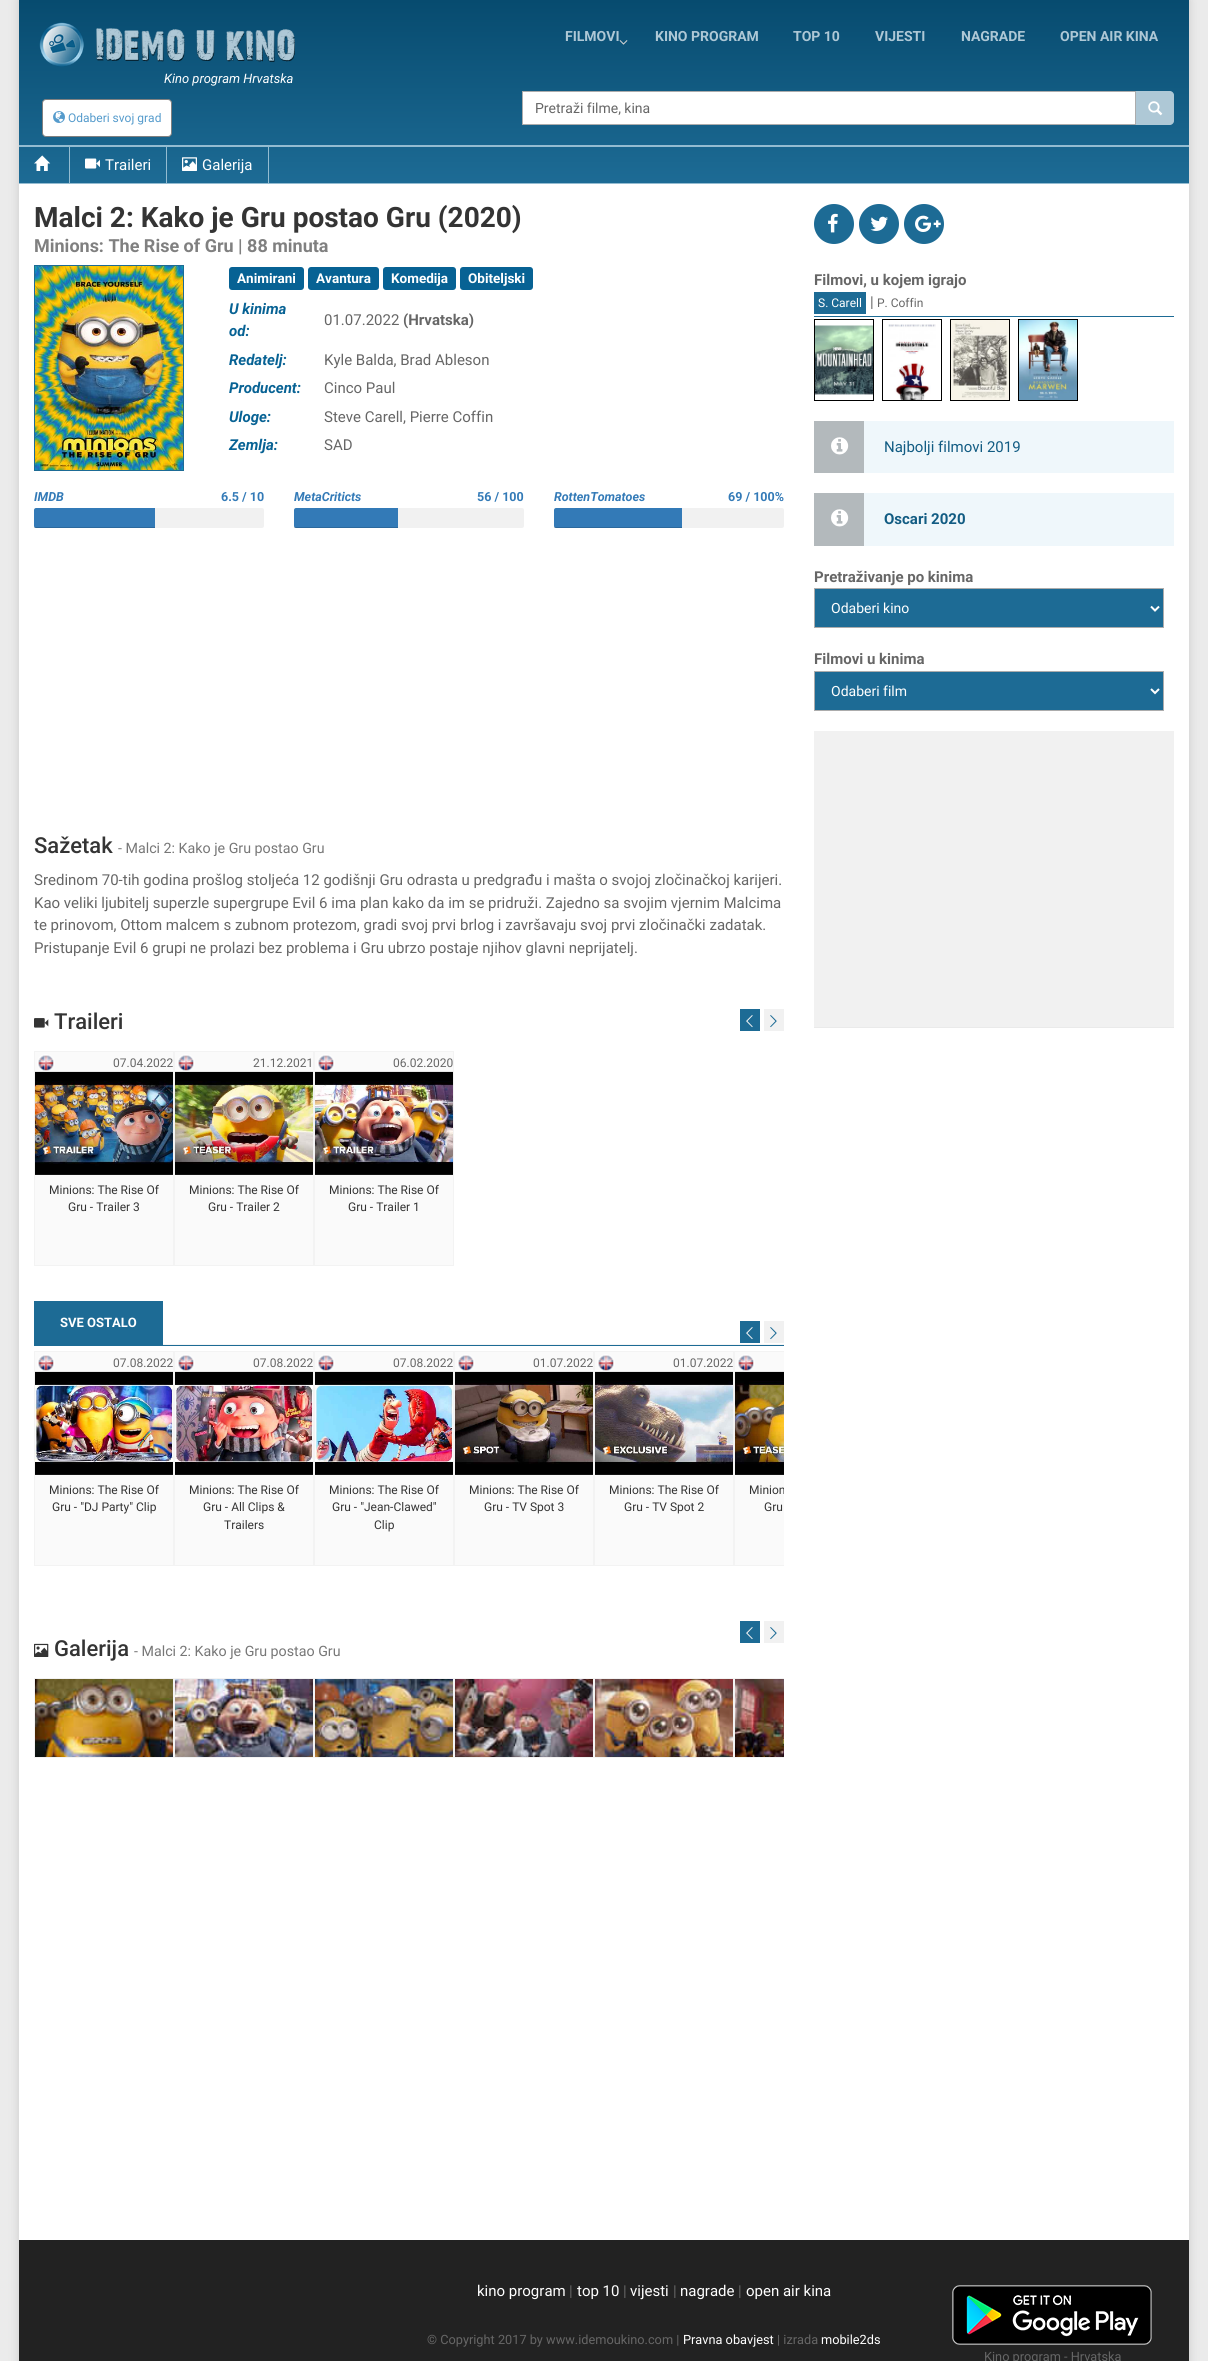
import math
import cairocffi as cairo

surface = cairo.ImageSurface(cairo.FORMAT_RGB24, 1208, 2361)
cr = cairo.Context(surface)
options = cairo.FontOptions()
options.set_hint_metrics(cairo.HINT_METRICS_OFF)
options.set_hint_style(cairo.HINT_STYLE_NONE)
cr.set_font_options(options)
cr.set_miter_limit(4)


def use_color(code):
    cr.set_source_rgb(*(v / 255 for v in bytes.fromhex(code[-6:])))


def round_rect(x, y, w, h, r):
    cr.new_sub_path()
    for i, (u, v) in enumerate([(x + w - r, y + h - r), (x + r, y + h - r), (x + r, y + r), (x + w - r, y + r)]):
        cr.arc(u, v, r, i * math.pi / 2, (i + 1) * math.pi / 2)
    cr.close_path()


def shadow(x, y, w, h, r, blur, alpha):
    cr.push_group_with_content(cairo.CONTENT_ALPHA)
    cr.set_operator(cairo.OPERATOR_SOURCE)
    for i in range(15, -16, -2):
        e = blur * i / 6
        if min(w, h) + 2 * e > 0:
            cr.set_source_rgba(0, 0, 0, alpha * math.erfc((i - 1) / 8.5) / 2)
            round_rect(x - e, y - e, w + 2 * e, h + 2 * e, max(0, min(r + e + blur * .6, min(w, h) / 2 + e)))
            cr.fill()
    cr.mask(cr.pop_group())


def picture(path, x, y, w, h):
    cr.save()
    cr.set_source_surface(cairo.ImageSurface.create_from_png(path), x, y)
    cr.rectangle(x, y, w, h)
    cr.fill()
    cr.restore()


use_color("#ebebeb")
cr.paint()
use_color("#cacaca")
shadow(19, 0, 1170, 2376, 0, 5, 1)
use_color("#ffffff")
cr.rectangle(19, 184, 1170, 2056)
cr.fill()
gradient = cairo.LinearGradient(604, 0, 604, 183)
gradient.add_color_stop_rgba(0, 0.027, 0.294, 0.435, 1)
gradient.add_color_stop_rgba(1, 0.114, 0.42, 0.584, 1)
cr.set_source(gradient)
cr.rectangle(19, 0, 1170, 183)
cr.fill()
use_color("#94bcd1")
cr.rectangle(19, 183, 1170, 1)
cr.fill()
cr.select_font_face("Roboto", cairo.FONT_SLANT_NORMAL, cairo.FONT_WEIGHT_BOLD)
cr.set_font_size(14)
use_color("#aec8d6")
cr.move_to(565, 41)
cr.show_text("FILMOVI")
picture("img1.png", 619, 40, 9, 5)
cr.move_to(655, 41)
cr.show_text("KINO PROGRAM")
cr.move_to(793, 41)
cr.show_text("TOP 10")
cr.move_to(875, 41)
cr.show_text("VIJESTI")
cr.move_to(961, 41)
cr.show_text("NAGRADE")
cr.move_to(1060, 41)
cr.show_text("OPEN AIR KINA")
picture("img2.png", 39, 22, 256, 45)
cr.select_font_face("Roboto", cairo.FONT_SLANT_ITALIC)
cr.set_font_size(13)
use_color("#ffffff")
cr.move_to(164, 83)
cr.show_text("Kino program Hrvatska")
cr.rectangle(522.5, 91.5, 613, 33)
cr.fill_preserve()
use_color("#acacac")
cr.set_line_width(1)
cr.stroke()
cr.select_font_face("Roboto")
cr.set_font_size(14)
use_color("#666666")
cr.move_to(535, 113)
cr.show_text("Pretraži filme, kina")
use_color("#aec8d6")
cr.new_path()
cr.move_to(1136, 91)
cr.line_to(1170, 91)
cr.curve_to(1172, 91, 1174, 93, 1174, 95)
cr.line_to(1174, 121)
cr.curve_to(1174, 123, 1172, 125, 1170, 125)
cr.line_to(1136, 125)
cr.close_path()
cr.fill()
picture("img3.png", 1148, 101, 15, 15)
use_color("#ffffff")
round_rect(42.5, 99.5, 129, 37, 3.5)
cr.fill_preserve()
use_color("#808080")
cr.stroke()
picture("img4.png", 53, 111, 12, 12)
cr.set_font_size(12)
use_color("#559bcc")
cr.move_to(68, 122)
cr.show_text("Odaberi svoj grad")
use_color("#94bcd1")
cr.rectangle(19, 145, 1170, 2)
cr.fill()
cr.rectangle(69, 147, 1, 36)
cr.fill()
picture("img5.png", 34, 155, 17, 16)
cr.rectangle(166, 147, 1, 36)
cr.fill()
picture("img6.png", 85, 158, 15, 11)
cr.set_font_size(15)
use_color("#ffffff")
cr.move_to(105, 170)
cr.show_text("Traileri")
use_color("#94bcd1")
cr.rectangle(268, 147, 1, 36)
cr.fill()
picture("img7.png", 182, 157, 15, 14)
use_color("#ffffff")
cr.move_to(202, 170)
cr.show_text("Galerija")
cr.select_font_face("Roboto", cairo.FONT_SLANT_NORMAL, cairo.FONT_WEIGHT_BOLD)
cr.set_font_size(28)
use_color("#343434")
cr.move_to(34, 227)
cr.show_text("Malci 2: Kako je Gru postao Gru (2020)")
cr.set_font_size(18)
use_color("#808080")
cr.move_to(34, 252)
cr.show_text("Minions: The Rise of Gru | 88 minuta")
cr.rectangle(34.5, 265.5, 149, 205)
use_color("#1d6b95")
cr.stroke()
picture("img8.png", 35, 266, 148, 204)
use_color("#076294")
round_rect(229, 267, 75, 23, 3)
cr.fill()
cr.set_font_size(13.5)
use_color("#ffffff")
cr.move_to(237, 283)
cr.show_text("Animirani")
use_color("#076294")
round_rect(308, 267, 71, 23, 3)
cr.fill()
use_color("#ffffff")
cr.move_to(316, 283)
cr.show_text("Avantura")
use_color("#076294")
round_rect(383, 267, 73, 23, 3)
cr.fill()
use_color("#ffffff")
cr.move_to(391, 283)
cr.show_text("Komedija")
use_color("#076294")
round_rect(460, 267, 73, 23, 3)
cr.fill()
use_color("#ffffff")
cr.move_to(468, 283)
cr.show_text("Obiteljski")
cr.select_font_face("Roboto", cairo.FONT_SLANT_ITALIC, cairo.FONT_WEIGHT_BOLD)
cr.set_font_size(15)
use_color("#076294")
cr.move_to(229, 314)
cr.show_text("U kinima")
cr.move_to(229, 336)
cr.show_text("od:")
cr.select_font_face("Roboto")
use_color("#666666")
cr.move_to(324, 325)
cr.show_text("01.07.2022")
cr.select_font_face("Roboto", cairo.FONT_SLANT_NORMAL, cairo.FONT_WEIGHT_BOLD)
cr.move_to(403, 325)
cr.show_text("(Hrvatska)")
cr.select_font_face("Roboto", cairo.FONT_SLANT_ITALIC, cairo.FONT_WEIGHT_BOLD)
use_color("#076294")
cr.move_to(229, 365)
cr.show_text("Redatelj:")
cr.select_font_face("Roboto")
use_color("#666666")
cr.move_to(324, 365)
cr.show_text("Kyle Balda, Brad Ableson")
cr.select_font_face("Roboto", cairo.FONT_SLANT_ITALIC, cairo.FONT_WEIGHT_BOLD)
use_color("#076294")
cr.move_to(229, 393)
cr.show_text("Producent:")
cr.select_font_face("Roboto")
use_color("#666666")
cr.move_to(324, 393)
cr.show_text("Cinco Paul")
cr.select_font_face("Roboto", cairo.FONT_SLANT_ITALIC, cairo.FONT_WEIGHT_BOLD)
use_color("#076294")
cr.move_to(229, 422)
cr.show_text("Uloge:")
cr.select_font_face("Roboto")
use_color("#666666")
cr.move_to(324, 422)
cr.show_text("Steve Carell, Pierre Coffin")
cr.select_font_face("Roboto", cairo.FONT_SLANT_ITALIC, cairo.FONT_WEIGHT_BOLD)
use_color("#076294")
cr.move_to(229, 450)
cr.show_text("Zemlja:")
cr.select_font_face("Roboto")
use_color("#666666")
cr.move_to(324, 450)
cr.show_text("SAD")
cr.select_font_face("Roboto", cairo.FONT_SLANT_ITALIC, cairo.FONT_WEIGHT_BOLD)
cr.set_font_size(12.5)
use_color("#337ab7")
cr.move_to(34, 501)
cr.show_text("IMDB")
cr.select_font_face("Roboto", cairo.FONT_SLANT_NORMAL, cairo.FONT_WEIGHT_BOLD)
cr.move_to(221, 501)
cr.show_text("6.5 / 10")
use_color("#f1f1f1")
round_rect(34, 508, 230, 20, 2)
cr.fill()
use_color("#337ab7")
cr.new_path()
cr.move_to(36, 508)
cr.line_to(155, 508)
cr.line_to(155, 528)
cr.line_to(36, 528)
cr.curve_to(35, 528, 34, 527, 34, 526)
cr.line_to(34, 510)
cr.curve_to(34, 509, 35, 508, 36, 508)
cr.close_path()
cr.fill()
cr.set_source_rgba(0, 0, 0, 0.15)
cr.rectangle(34, 527, 121, 1)
cr.fill()
cr.select_font_face("Roboto", cairo.FONT_SLANT_ITALIC, cairo.FONT_WEIGHT_BOLD)
use_color("#337ab7")
cr.move_to(294, 501)
cr.show_text("MetaCriticts")
cr.select_font_face("Roboto", cairo.FONT_SLANT_NORMAL, cairo.FONT_WEIGHT_BOLD)
cr.move_to(477, 501)
cr.show_text("56 / 100")
use_color("#f1f1f1")
round_rect(294, 508, 230, 20, 2)
cr.fill()
use_color("#337ab7")
cr.new_path()
cr.move_to(296, 508)
cr.line_to(398, 508)
cr.line_to(398, 528)
cr.line_to(296, 528)
cr.curve_to(295, 528, 294, 527, 294, 526)
cr.line_to(294, 510)
cr.curve_to(294, 509, 295, 508, 296, 508)
cr.close_path()
cr.fill()
cr.set_source_rgba(0, 0, 0, 0.15)
cr.rectangle(294, 527, 104, 1)
cr.fill()
cr.select_font_face("Roboto", cairo.FONT_SLANT_ITALIC, cairo.FONT_WEIGHT_BOLD)
use_color("#337ab7")
cr.move_to(554, 501)
cr.show_text("RottenTomatoes")
cr.select_font_face("Roboto", cairo.FONT_SLANT_NORMAL, cairo.FONT_WEIGHT_BOLD)
cr.move_to(728, 501)
cr.show_text("69 / 100%")
use_color("#f1f1f1")
round_rect(554, 508, 230, 20, 2)
cr.fill()
use_color("#337ab7")
cr.new_path()
cr.move_to(556, 508)
cr.line_to(682, 508)
cr.line_to(682, 528)
cr.line_to(556, 528)
cr.curve_to(555, 528, 554, 527, 554, 526)
cr.line_to(554, 510)
cr.curve_to(554, 509, 555, 508, 556, 508)
cr.close_path()
cr.fill()
cr.set_source_rgba(0, 0, 0, 0.15)
cr.rectangle(554, 527, 128, 1)
cr.fill()
cr.select_font_face("Roboto Medium")
cr.set_font_size(22)
use_color("#343434")
cr.move_to(34, 853)
cr.show_text("Sažetak")
cr.select_font_face("Roboto")
cr.set_font_size(14.25)
use_color("#777777")
cr.move_to(118, 853)
cr.show_text("- Malci 2: Kako je Gru postao Gru")
cr.set_font_size(15)
use_color("#666666")
cr.move_to(34, 885)
cr.show_text("Sredinom 70-tih godina prošlog stoljeća 12 godišnji Gru odrasta u predgrađu i mašta o svojoj zločinačkoj karijeri.")
cr.move_to(34, 908)
cr.show_text("Kao veliki ljubitelj superzle supergrupe Evil 6 ima plan kako da im se pridruži. Zajedno sa svojim vjernim Malcima")
cr.move_to(34, 930)
cr.show_text("te prinovom, Ottom malcem s zubnom protezom, gradi svoj prvi brlog i završavaju svoj prvi zločinački zadatak.")
cr.move_to(34, 953)
cr.show_text("Pristupanje Evil 6 grupi ne prolazi bez problema i Gru ubrzo postaje njihov glavni neprijatelj.")
picture("img9.png", 34, 1018, 15, 10)
cr.select_font_face("Roboto Medium")
cr.set_font_size(22)
use_color("#343434")
cr.move_to(54, 1029)
cr.show_text("Traileri")
use_color("#1d6b95")
cr.rectangle(740, 1009, 20, 22)
cr.fill()
picture("img10.png", 746, 1015, 7, 13)
use_color("#f1f1f1")
cr.rectangle(764, 1009, 20, 22)
cr.fill()
picture("img11.png", 770, 1015, 7, 13)
use_color("#fafafa")
cr.rectangle(34.5, 1051.5, 139, 214)
cr.fill_preserve()
use_color("#f3f3f3")
cr.stroke()
picture("img12.png", 37, 1054, 18, 18)
cr.select_font_face("Roboto")
cr.set_font_size(12)
use_color("#666666")
cr.move_to(113, 1067)
cr.show_text("07.04.2022")
picture("img13.png", 35, 1071, 138, 104)
use_color("#343434")
cr.move_to(49, 1194)
cr.show_text("Minions: The Rise Of")
cr.move_to(68, 1211)
cr.show_text("Gru - Trailer 3")
use_color("#fafafa")
cr.rectangle(174.5, 1051.5, 139, 214)
cr.fill_preserve()
use_color("#f3f3f3")
cr.stroke()
picture("img12.png", 177, 1054, 18, 18)
use_color("#666666")
cr.move_to(253, 1067)
cr.show_text("21.12.2021")
picture("img14.png", 175, 1071, 138, 104)
use_color("#343434")
cr.move_to(189, 1194)
cr.show_text("Minions: The Rise Of")
cr.move_to(208, 1211)
cr.show_text("Gru - Trailer 2")
use_color("#fafafa")
cr.rectangle(314.5, 1051.5, 139, 214)
cr.fill_preserve()
use_color("#f3f3f3")
cr.stroke()
picture("img15.png", 317, 1054, 18, 18)
use_color("#666666")
cr.move_to(393, 1067)
cr.show_text("06.02.2020")
picture("img16.png", 315, 1071, 138, 104)
use_color("#343434")
cr.move_to(329, 1194)
cr.show_text("Minions: The Rise Of")
cr.move_to(348, 1211)
cr.show_text("Gru - Trailer 1")
use_color("#f5f5f5")
cr.rectangle(163, 1344, 621, 1)
cr.fill()
use_color("#1d6b95")
cr.rectangle(163, 1345, 621, 1)
cr.fill()
cr.rectangle(34, 1301, 129, 45)
cr.fill()
cr.select_font_face("Roboto", cairo.FONT_SLANT_NORMAL, cairo.FONT_WEIGHT_BOLD)
cr.set_font_size(13)
use_color("#ffffff")
cr.move_to(60, 1327)
cr.show_text("SVE OSTALO")
use_color("#1d6b95")
cr.rectangle(740, 1321, 20, 22)
cr.fill()
picture("img10.png", 746, 1327, 7, 13)
use_color("#f1f1f1")
cr.rectangle(764, 1321, 20, 22)
cr.fill()
picture("img11.png", 770, 1327, 7, 13)
use_color("#fafafa")
cr.rectangle(34.5, 1351.5, 139, 214)
cr.fill_preserve()
use_color("#f3f3f3")
cr.stroke()
picture("img12.png", 37, 1354, 18, 18)
cr.select_font_face("Roboto")
cr.set_font_size(12)
use_color("#666666")
cr.move_to(113, 1367)
cr.show_text("07.08.2022")
picture("img17.png", 35, 1371, 138, 104)
use_color("#343434")
cr.move_to(49, 1494)
cr.show_text("Minions: The Rise Of")
cr.move_to(52, 1511)
cr.show_text("Gru - \"DJ Party\" Clip")
use_color("#fafafa")
cr.rectangle(174.5, 1351.5, 139, 214)
cr.fill_preserve()
use_color("#f3f3f3")
cr.stroke()
picture("img12.png", 177, 1354, 18, 18)
use_color("#666666")
cr.move_to(253, 1367)
cr.show_text("07.08.2022")
picture("img18.png", 175, 1371, 138, 104)
use_color("#343434")
cr.move_to(189, 1494)
cr.show_text("Minions: The Rise Of")
cr.move_to(203, 1511)
cr.show_text("Gru - All Clips &")
cr.move_to(224, 1529)
cr.show_text("Trailers")
use_color("#fafafa")
cr.rectangle(314.5, 1351.5, 139, 214)
cr.fill_preserve()
use_color("#f3f3f3")
cr.stroke()
picture("img15.png", 317, 1354, 18, 18)
use_color("#666666")
cr.move_to(393, 1367)
cr.show_text("07.08.2022")
picture("img19.png", 315, 1371, 138, 104)
use_color("#343434")
cr.move_to(329, 1494)
cr.show_text("Minions: The Rise Of")
cr.move_to(332, 1511)
cr.show_text("Gru - \"Jean-Clawed\"")
cr.move_to(374, 1529)
cr.show_text("Clip")
use_color("#fafafa")
cr.rectangle(454.5, 1351.5, 139, 214)
cr.fill_preserve()
use_color("#f3f3f3")
cr.stroke()
picture("img12.png", 457, 1354, 18, 18)
use_color("#666666")
cr.move_to(533, 1367)
cr.show_text("01.07.2022")
picture("img20.png", 455, 1371, 138, 104)
use_color("#343434")
cr.move_to(469, 1494)
cr.show_text("Minions: The Rise Of")
cr.move_to(484, 1511)
cr.show_text("Gru - TV Spot 3")
use_color("#fafafa")
cr.rectangle(594.5, 1351.5, 139, 214)
cr.fill_preserve()
use_color("#f3f3f3")
cr.stroke()
picture("img15.png", 597, 1354, 18, 18)
use_color("#666666")
cr.move_to(673, 1367)
cr.show_text("01.07.2022")
picture("img21.png", 595, 1371, 138, 104)
use_color("#343434")
cr.move_to(609, 1494)
cr.show_text("Minions: The Rise Of")
cr.move_to(624, 1511)
cr.show_text("Gru - TV Spot 2")
use_color("#fafafa")
cr.rectangle(735, 1352, 49, 213)
cr.fill()
cr.save()
cr.rectangle(34, 1351, 750, 235)
cr.clip()
cr.rectangle(734.5, 1351.5, 139, 214)
use_color("#f3f3f3")
cr.stroke()
cr.restore()
picture("img12.png", 737, 1354, 18, 18)
picture("img22.png", 735, 1371, 49, 104)
cr.save()
cr.rectangle(736, 1476, 48, 88)
cr.clip()
use_color("#343434")
cr.move_to(749, 1494)
cr.show_text("Minion")
cr.restore()
use_color("#343434")
cr.move_to(764, 1511)
cr.show_text("Gru")
use_color("#1d6b95")
cr.rectangle(740, 1621, 20, 22)
cr.fill()
picture("img10.png", 746, 1627, 7, 13)
use_color("#f1f1f1")
cr.rectangle(764, 1621, 20, 22)
cr.fill()
picture("img11.png", 770, 1627, 7, 13)
picture("img23.png", 34, 1643, 15, 14)
cr.select_font_face("Roboto Medium")
cr.set_font_size(22)
use_color("#343434")
cr.move_to(54, 1656)
cr.show_text("Galerija")
cr.select_font_face("Roboto")
cr.set_font_size(14.25)
use_color("#777777")
cr.move_to(134, 1656)
cr.show_text("- Malci 2: Kako je Gru postao Gru")
cr.rectangle(34.5, 1678.5, 139, 79)
use_color("#f3f3f3")
cr.stroke()
picture("img24.png", 35, 1679, 138, 78)
cr.rectangle(174.5, 1678.5, 139, 79)
cr.stroke()
picture("img25.png", 175, 1679, 138, 78)
cr.rectangle(314.5, 1678.5, 139, 79)
cr.stroke()
picture("img26.png", 315, 1679, 138, 78)
cr.rectangle(454.5, 1678.5, 139, 79)
cr.stroke()
picture("img27.png", 455, 1679, 138, 78)
cr.rectangle(594.5, 1678.5, 139, 79)
cr.stroke()
picture("img28.png", 595, 1679, 138, 78)
cr.save()
cr.rectangle(34, 1668, 750, 110)
cr.clip()
cr.rectangle(734.5, 1678.5, 139, 79)
cr.stroke()
cr.restore()
picture("img29.png", 735, 1679, 49, 78)
use_color("#1d6b95")
cr.arc(834, 224, 20, 0, 2 * math.pi)
cr.fill()
picture("img30.png", 828, 213, 10, 20)
cr.arc(879, 224, 20, 0, 2 * math.pi)
cr.fill()
picture("img31.png", 870, 216, 18, 15)
cr.arc(924, 224, 20, 0, 2 * math.pi)
cr.fill()
picture("img32.png", 915, 215, 26, 17)
cr.select_font_face("Roboto", cairo.FONT_SLANT_NORMAL, cairo.FONT_WEIGHT_BOLD)
cr.set_font_size(15)
use_color("#666666")
cr.move_to(814, 285)
cr.show_text("Filmovi, u kojem igrajo")
use_color("#1d6b95")
cr.rectangle(814, 316, 360, 1)
cr.fill()
cr.rectangle(814, 292, 52, 22)
cr.fill()
cr.select_font_face("Roboto")
cr.set_font_size(12)
use_color("#ffffff")
cr.move_to(818, 307)
cr.show_text("S. Carell")
cr.set_font_size(15)
use_color("#666666")
cr.move_to(870, 307)
cr.show_text("|")
cr.set_font_size(12)
cr.move_to(877, 307)
cr.show_text("P. Coffin")
cr.rectangle(814.5, 319.5, 59, 81)
use_color("#000000")
cr.stroke()
picture("img33.png", 815, 325, 58, 70)
cr.rectangle(882.5, 319.5, 59, 81)
cr.stroke()
picture("img34.png", 888, 324, 48, 76)
cr.rectangle(950.5, 319.5, 59, 81)
cr.stroke()
picture("img35.png", 951, 320, 58, 80)
cr.rectangle(1018.5, 319.5, 59, 81)
cr.stroke()
picture("img36.png", 1019, 320, 58, 80)
use_color("#eff7fb")
cr.rectangle(864, 421, 310, 52)
cr.fill()
use_color("#b3b9bc")
cr.rectangle(814, 421, 50, 52)
cr.fill()
picture("img37.png", 831, 437, 18, 18)
cr.set_font_size(15)
use_color("#125c83")
cr.move_to(884, 452)
cr.show_text("Najbolji filmovi 2019")
use_color("#eff7fb")
cr.rectangle(864, 493, 310, 53)
cr.fill()
use_color("#b3b9bc")
cr.rectangle(814, 493, 50, 53)
cr.fill()
picture("img37.png", 831, 509, 18, 18)
cr.select_font_face("Roboto", cairo.FONT_SLANT_NORMAL, cairo.FONT_WEIGHT_BOLD)
use_color("#125c83")
cr.move_to(884, 524)
cr.show_text("Oscari 2020")
use_color("#666666")
cr.move_to(814, 582)
cr.show_text("Pretraživanje po kinima")
use_color("#1d6b95")
cr.rectangle(814.5, 588.5, 349, 39)
cr.fill_preserve()
use_color("#acacac")
cr.stroke()
cr.new_path()
cr.move_to(1151, 606.5)
cr.line_to(1155, 610.5)
cr.line_to(1159, 606.5)
use_color("#ffffff")
cr.set_line_width(2)
cr.stroke()
cr.select_font_face("Roboto")
cr.set_font_size(14)
cr.move_to(831, 613)
cr.show_text("Odaberi kino")
cr.select_font_face("Roboto", cairo.FONT_SLANT_NORMAL, cairo.FONT_WEIGHT_BOLD)
cr.set_font_size(15)
use_color("#666666")
cr.move_to(814, 664)
cr.show_text("Filmovi u kinima")
use_color("#1d6b95")
cr.rectangle(814.5, 671.5, 349, 39)
cr.fill_preserve()
use_color("#acacac")
cr.set_line_width(1)
cr.stroke()
cr.new_path()
cr.move_to(1151, 689)
cr.line_to(1155, 693)
cr.line_to(1159, 689)
use_color("#ffffff")
cr.set_line_width(2)
cr.stroke()
cr.select_font_face("Roboto")
cr.set_font_size(14)
cr.move_to(831, 696)
cr.show_text("Odaberi film")
use_color("#f1f1f1")
cr.rectangle(814, 731, 360, 296)
cr.fill()
use_color("#eaeaea")
cr.rectangle(814, 1027, 360, 1)
cr.fill()
use_color("#222222")
cr.rectangle(19, 2240, 1170, 121)
cr.fill()
cr.set_font_size(15)
use_color("#ffffff")
cr.move_to(477, 2296)
cr.show_text("kino program")
use_color("#666666")
cr.move_to(569, 2296)
cr.show_text("|")
use_color("#ffffff")
cr.move_to(577, 2296)
cr.show_text("top 10")
use_color("#666666")
cr.move_to(623, 2296)
cr.show_text("|")
use_color("#ffffff")
cr.move_to(630, 2296)
cr.show_text("vijesti")
use_color("#666666")
cr.move_to(673, 2296)
cr.show_text("|")
use_color("#ffffff")
cr.move_to(680, 2296)
cr.show_text("nagrade")
use_color("#666666")
cr.move_to(738, 2296)
cr.show_text("|")
use_color("#ffffff")
cr.move_to(746, 2296)
cr.show_text("open air kina")
cr.set_font_size(12.75)
use_color("#666666")
cr.move_to(427, 2344)
cr.show_text("© Copyright 2017 by www.idemoukino.com |")
use_color("#ffffff")
cr.move_to(683, 2344)
cr.show_text("Pravna obavjest")
use_color("#666666")
cr.move_to(777, 2344)
cr.show_text("| izrada")
use_color("#ffffff")
cr.move_to(821, 2344)
cr.show_text("mobile2ds")
picture("img38.png", 952, 2285, 200, 60)
use_color("#666666")
cr.move_to(984, 2361)
cr.show_text("Kino program - Hrvatska")
surface.write_to_png("result.png")
